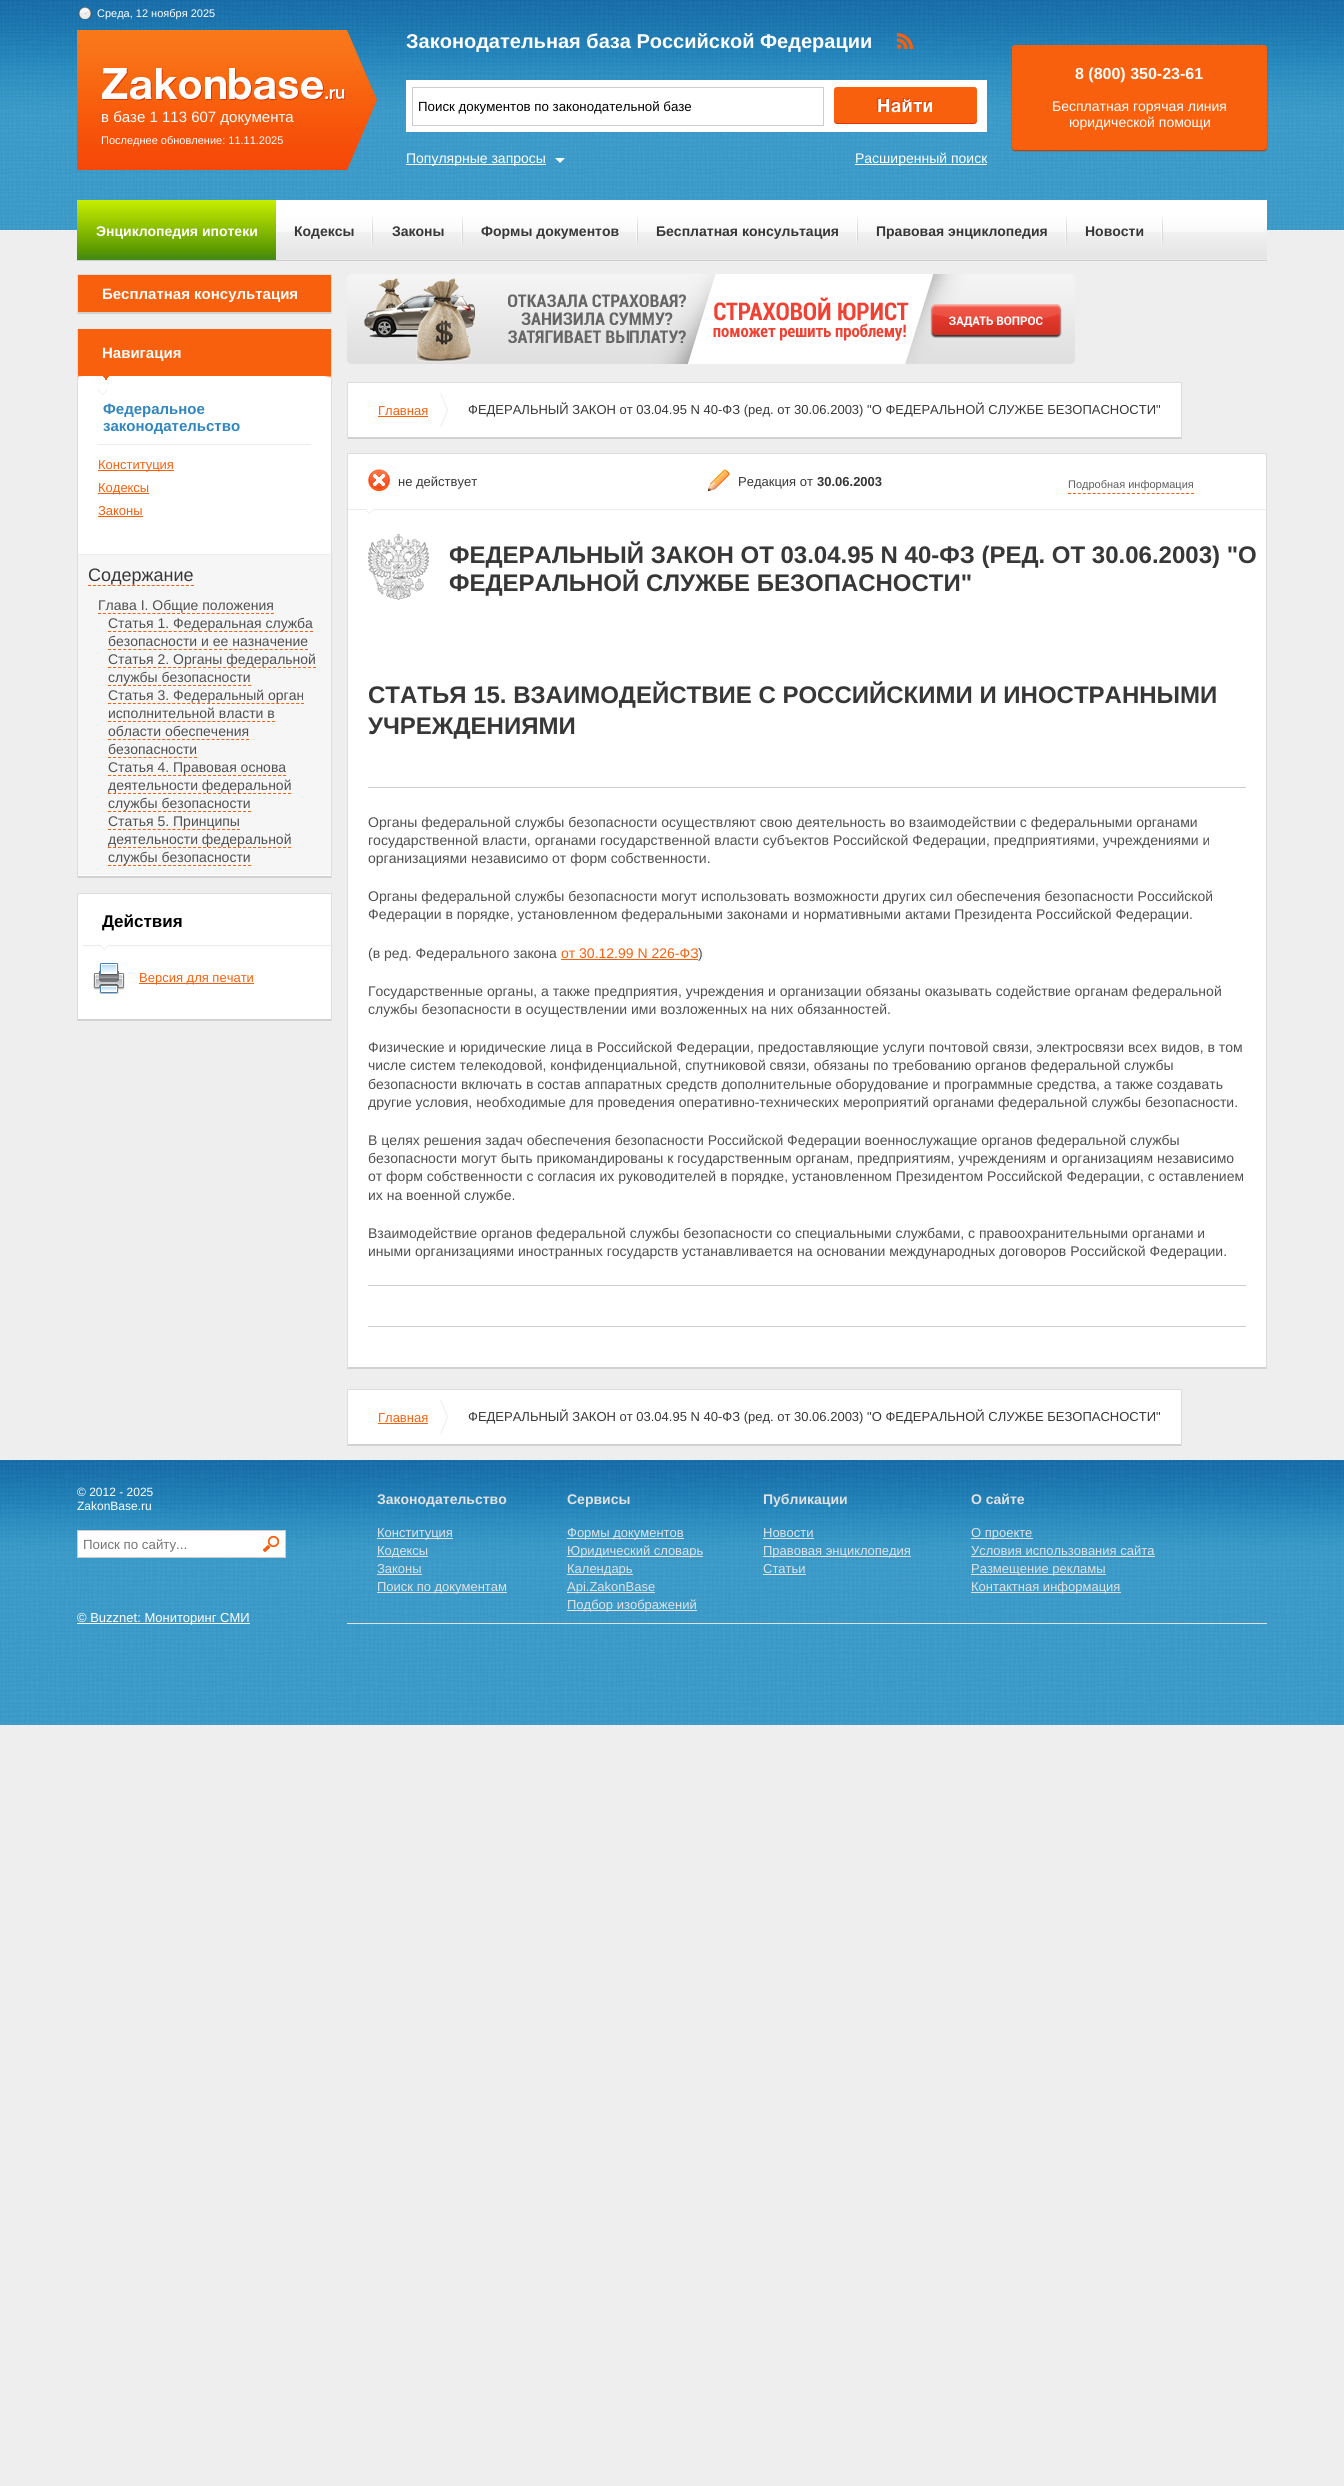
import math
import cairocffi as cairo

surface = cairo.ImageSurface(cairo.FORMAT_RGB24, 1344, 2486)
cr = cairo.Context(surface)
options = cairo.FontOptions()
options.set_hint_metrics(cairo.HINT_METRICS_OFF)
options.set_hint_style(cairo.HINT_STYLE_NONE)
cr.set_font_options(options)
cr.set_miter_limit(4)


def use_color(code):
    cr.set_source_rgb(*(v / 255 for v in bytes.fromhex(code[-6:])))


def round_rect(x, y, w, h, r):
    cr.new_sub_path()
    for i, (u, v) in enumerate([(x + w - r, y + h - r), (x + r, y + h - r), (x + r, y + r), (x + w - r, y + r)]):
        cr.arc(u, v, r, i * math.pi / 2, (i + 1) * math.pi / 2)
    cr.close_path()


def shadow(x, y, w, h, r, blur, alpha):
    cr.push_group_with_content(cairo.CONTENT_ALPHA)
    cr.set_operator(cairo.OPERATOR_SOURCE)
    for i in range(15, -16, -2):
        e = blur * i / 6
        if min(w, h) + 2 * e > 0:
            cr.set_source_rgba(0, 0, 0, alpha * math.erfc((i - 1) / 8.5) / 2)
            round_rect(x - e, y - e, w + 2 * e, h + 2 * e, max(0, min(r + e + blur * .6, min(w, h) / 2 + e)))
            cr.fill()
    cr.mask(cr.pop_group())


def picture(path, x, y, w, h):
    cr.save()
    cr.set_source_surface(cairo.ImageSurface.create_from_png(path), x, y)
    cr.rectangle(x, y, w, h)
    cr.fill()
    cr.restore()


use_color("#eeeeee")
cr.paint()
picture("img1.png", 0, 0, 1344, 230)
picture("img2.png", 78, 7, 14, 12)
cr.select_font_face("Liberation Sans")
cr.set_font_size(11)
use_color("#ffffff")
cr.move_to(97, 17)
cr.show_text("Среда, 12 ноября 2025")
cr.select_font_face("Liberation Sans", cairo.FONT_SLANT_NORMAL, cairo.FONT_WEIGHT_BOLD)
cr.set_font_size(20)
cr.move_to(406, 48)
cr.show_text("Законодательная база Российской Федерации")
picture("img3.png", 897, 33, 16, 16)
cr.rectangle(406, 80, 581, 52)
cr.fill()
cr.rectangle(412.5, 87.5, 411, 38)
use_color("#cccccc")
cr.set_line_width(1)
cr.stroke()
cr.select_font_face("Liberation Sans")
cr.set_font_size(13.3)
use_color("#000000")
cr.move_to(418, 111)
cr.show_text("Поиск документов по законодательной базе")
picture("img4.png", 834, 87, 143, 37)
use_color("#ad4004")
shadow(1012, 46, 255, 105, 3, 0.5, 1)
use_color("#f8600d")
round_rect(1012, 45, 255, 105, 3)
cr.fill()
cr.select_font_face("Liberation Sans", cairo.FONT_SLANT_NORMAL, cairo.FONT_WEIGHT_BOLD)
cr.set_font_size(16)
use_color("#ffffff")
cr.move_to(1075, 79)
cr.show_text("8 (800) 350-23-61")
cr.select_font_face("Liberation Sans")
cr.set_font_size(14)
cr.move_to(1052, 111)
cr.show_text("Бесплатная горячая линия")
cr.move_to(1069, 127)
cr.show_text("юридической помощи")
picture("img5.png", 77, 30, 300, 140)
cr.set_font_size(15)
cr.move_to(101, 122)
cr.show_text("в базе 1 113 607 документа")
cr.set_font_size(11)
cr.move_to(101, 144)
cr.show_text("Последнее обновление: 11.11.2025")
picture("img6.png", 555, 158, 11, 5)
cr.rectangle(406, 164, 140, 1)
cr.fill()
cr.set_font_size(14)
cr.move_to(406, 163)
cr.show_text("Популярные запросы")
cr.rectangle(855, 164, 132, 1)
cr.fill()
cr.move_to(855, 163)
cr.show_text("Расширенный поиск")
picture("img7.png", 276, 200, 991, 60)
use_color("#cccccc")
cr.rectangle(77, 260, 1190, 1)
cr.fill()
picture("img8.png", 77, 200, 199, 60)
cr.select_font_face("Liberation Sans", cairo.FONT_SLANT_NORMAL, cairo.FONT_WEIGHT_BOLD)
use_color("#ffffff")
cr.move_to(96, 236)
cr.show_text("Энциклопедия ипотеки")
picture("img9.png", 371, 215, 2, 32)
use_color("#373737")
cr.move_to(294, 236)
cr.show_text("Кодексы")
picture("img9.png", 461, 215, 2, 32)
cr.move_to(392, 236)
cr.show_text("Законы")
picture("img9.png", 636, 215, 2, 32)
cr.move_to(481, 236)
cr.show_text("Формы документов")
picture("img9.png", 856, 215, 2, 32)
cr.move_to(656, 236)
cr.show_text("Бесплатная консультация")
picture("img9.png", 1065, 215, 2, 32)
cr.move_to(876, 236)
cr.show_text("Правовая энциклопедия")
picture("img9.png", 1161, 215, 2, 32)
cr.move_to(1085, 236)
cr.show_text("Новости")
use_color("#dddddd")
cr.rectangle(77, 274, 255, 1)
cr.fill()
cr.new_path()
cr.move_to(332, 274)
cr.line_to(332, 314)
cr.line_to(331, 312)
cr.line_to(331, 275)
cr.close_path()
cr.fill()
use_color("#d1d1d1")
cr.new_path()
cr.move_to(332, 314)
cr.line_to(77, 314)
cr.line_to(78, 312)
cr.line_to(331, 312)
cr.close_path()
cr.fill()
use_color("#dddddd")
cr.new_path()
cr.move_to(77, 314)
cr.line_to(77, 274)
cr.line_to(78, 275)
cr.line_to(78, 312)
cr.close_path()
cr.fill()
use_color("#f8600d")
cr.rectangle(78, 275, 253, 37)
cr.fill()
cr.set_font_size(15)
use_color("#ffffff")
cr.move_to(102, 299)
cr.show_text("Бесплатная консультация")
cr.rectangle(77, 375, 255, 503)
cr.fill()
use_color("#dddddd")
cr.new_path()
cr.move_to(332, 329)
cr.line_to(332, 878)
cr.line_to(331, 876)
cr.line_to(331, 329)
cr.close_path()
cr.fill()
use_color("#d1d1d1")
cr.new_path()
cr.move_to(332, 878)
cr.line_to(77, 878)
cr.line_to(78, 876)
cr.line_to(331, 876)
cr.close_path()
cr.fill()
use_color("#dddddd")
cr.new_path()
cr.move_to(77, 878)
cr.line_to(77, 329)
cr.line_to(78, 329)
cr.line_to(78, 876)
cr.close_path()
cr.fill()
picture("img10.png", 78, 329, 253, 51)
use_color("#ffffff")
cr.move_to(102, 358)
cr.show_text("Навигация")
picture("img11.png", 98, 390, 9, 5)
use_color("#ececec")
cr.rectangle(98, 444, 213, 1)
cr.fill()
use_color("#3086be")
cr.move_to(103, 414)
cr.show_text("Федеральное")
cr.move_to(103, 431)
cr.show_text("законодательство")
use_color("#f8600d")
cr.rectangle(98, 470, 76, 1)
cr.fill()
cr.select_font_face("Liberation Sans")
cr.set_font_size(13)
cr.move_to(98, 469)
cr.show_text("Конституция")
cr.rectangle(98, 493, 51, 1)
cr.fill()
cr.move_to(98, 492)
cr.show_text("Кодексы")
cr.move_to(98, 515)
cr.show_text("Законы")
cr.rectangle(98, 516, 45, 1)
cr.fill()
use_color("#f6f6f6")
cr.rectangle(78, 555, 253, 320)
cr.fill()
use_color("#ededed")
cr.rectangle(78, 554, 253, 1)
cr.fill()
cr.set_font_size(18)
use_color("#373737")
cr.move_to(88, 581)
cr.show_text("Содержание")
cr.new_path()
cr.move_to(88, 585.5)
cr.line_to(194, 585.5)
use_color("#f8600d")
cr.set_dash([3, 1.9])
cr.stroke()
cr.set_font_size(14)
use_color("#505050")
cr.move_to(98, 610)
cr.show_text("Глава I. Общие положения")
cr.new_path()
cr.move_to(98, 613.5)
cr.line_to(274, 613.5)
use_color("#f8600d")
cr.set_dash([3, 1.94])
cr.stroke()
use_color("#505050")
cr.move_to(108, 628)
cr.show_text("Статья 1. Федеральная служба")
cr.new_path()
cr.move_to(108, 631.5)
cr.line_to(313, 631.5)
use_color("#f8600d")
cr.set_dash([3, 2.05])
cr.stroke()
use_color("#505050")
cr.move_to(108, 646)
cr.show_text("безопасности и ее назначение")
cr.new_path()
cr.move_to(108, 649.5)
cr.line_to(308, 649.5)
use_color("#f8600d")
cr.stroke()
use_color("#505050")
cr.move_to(108, 664)
cr.show_text("Статья 2. Органы федеральной")
cr.new_path()
cr.move_to(108, 667.5)
cr.line_to(316, 667.5)
use_color("#f8600d")
cr.set_dash([3, 2])
cr.stroke()
use_color("#505050")
cr.move_to(108, 682)
cr.show_text("службы безопасности")
cr.new_path()
cr.move_to(108, 685.5)
cr.line_to(251, 685.5)
use_color("#f8600d")
cr.stroke()
use_color("#505050")
cr.move_to(108, 700)
cr.show_text("Статья 3. Федеральный орган")
cr.new_path()
cr.move_to(108, 703.5)
cr.line_to(304, 703.5)
use_color("#f8600d")
cr.set_dash([3, 1.95])
cr.stroke()
use_color("#505050")
cr.move_to(108, 718)
cr.show_text("исполнительной власти в")
cr.new_path()
cr.move_to(108, 721.5)
cr.line_to(275, 721.5)
use_color("#f8600d")
cr.set_dash([3, 1.97])
cr.stroke()
use_color("#505050")
cr.move_to(108, 736)
cr.show_text("области обеспечения")
cr.new_path()
cr.move_to(108, 739.5)
cr.line_to(249, 739.5)
use_color("#f8600d")
cr.set_dash([3, 1.93])
cr.stroke()
use_color("#505050")
cr.move_to(108, 754)
cr.show_text("безопасности")
cr.new_path()
cr.move_to(108, 757.5)
cr.line_to(197, 757.5)
use_color("#f8600d")
cr.set_dash([3, 2.06])
cr.stroke()
use_color("#505050")
cr.move_to(108, 772)
cr.show_text("Статья 4. Правовая основа")
cr.new_path()
cr.move_to(108, 775.5)
cr.line_to(286, 775.5)
use_color("#f8600d")
cr.set_dash([3, 2])
cr.stroke()
use_color("#505050")
cr.move_to(108, 790)
cr.show_text("деятельности федеральной")
cr.new_path()
cr.move_to(108, 793.5)
cr.line_to(291, 793.5)
use_color("#f8600d")
cr.stroke()
use_color("#505050")
cr.move_to(108, 808)
cr.show_text("службы безопасности")
cr.new_path()
cr.move_to(108, 811.5)
cr.line_to(251, 811.5)
use_color("#f8600d")
cr.stroke()
use_color("#505050")
cr.move_to(108, 826)
cr.show_text("Статья 5. Принципы")
cr.new_path()
cr.move_to(108, 829.5)
cr.line_to(240, 829.5)
use_color("#f8600d")
cr.set_dash([3, 1.96])
cr.stroke()
use_color("#505050")
cr.move_to(108, 844)
cr.show_text("деятельности федеральной")
cr.new_path()
cr.move_to(108, 847.5)
cr.line_to(291, 847.5)
use_color("#f8600d")
cr.set_dash([3, 2])
cr.stroke()
use_color("#505050")
cr.move_to(108, 862)
cr.show_text("службы безопасности")
cr.new_path()
cr.move_to(108, 865.5)
cr.line_to(251, 865.5)
use_color("#f8600d")
cr.stroke()
use_color("#ffffff")
cr.rectangle(78, 894, 253, 125)
cr.fill()
use_color("#dddddd")
cr.rectangle(77, 893, 255, 1)
cr.fill()
cr.new_path()
cr.move_to(332, 893)
cr.line_to(332, 1021)
cr.line_to(331, 1019)
cr.line_to(331, 894)
cr.close_path()
cr.fill()
use_color("#d1d1d1")
cr.new_path()
cr.move_to(332, 1021)
cr.line_to(77, 1021)
cr.line_to(78, 1019)
cr.line_to(331, 1019)
cr.close_path()
cr.fill()
use_color("#dddddd")
cr.new_path()
cr.move_to(77, 1021)
cr.line_to(77, 893)
cr.line_to(78, 894)
cr.line_to(78, 1019)
cr.close_path()
cr.fill()
picture("img12.png", 83, 945, 248, 5)
cr.select_font_face("Liberation Sans", cairo.FONT_SLANT_NORMAL, cairo.FONT_WEIGHT_BOLD)
cr.set_font_size(17)
use_color("#000000")
cr.move_to(102, 927)
cr.show_text("Действия")
picture("img13.png", 93, 963, 32, 31)
use_color("#f8600d")
cr.rectangle(139, 983, 115, 1)
cr.fill()
cr.select_font_face("Liberation Sans")
cr.set_font_size(13)
cr.move_to(139, 982)
cr.show_text("Версия для печати")
picture("img14.png", 347, 274, 728, 90)
use_color("#ffffff")
cr.rectangle(348, 383, 833, 54)
cr.fill()
use_color("#dddddd")
cr.rectangle(347, 382, 835, 1)
cr.fill()
cr.new_path()
cr.move_to(1182, 382)
cr.line_to(1182, 439)
cr.line_to(1181, 437)
cr.line_to(1181, 383)
cr.close_path()
cr.fill()
use_color("#d1d1d1")
cr.new_path()
cr.move_to(1182, 439)
cr.line_to(347, 439)
cr.line_to(348, 437)
cr.line_to(1181, 437)
cr.close_path()
cr.fill()
use_color("#dddddd")
cr.new_path()
cr.move_to(347, 439)
cr.line_to(347, 382)
cr.line_to(348, 383)
cr.line_to(348, 437)
cr.close_path()
cr.fill()
picture("img15.png", 440, 393, 8, 34)
use_color("#f8600d")
cr.move_to(378, 415)
cr.show_text("Главная")
cr.rectangle(378, 416, 50, 1)
cr.fill()
use_color("#373737")
cr.move_to(468, 414)
cr.show_text("ФЕДЕРАЛЬНЫЙ ЗАКОН от 03.04.95 N 40-ФЗ (ред. от 30.06.2003) \"О ФЕДЕРАЛЬНОЙ СЛУЖБЕ БЕЗОПАСНОСТИ\"")
use_color("#ffffff")
cr.rectangle(348, 454, 918, 913)
cr.fill()
use_color("#dddddd")
cr.rectangle(347, 453, 920, 1)
cr.fill()
cr.new_path()
cr.move_to(1267, 453)
cr.line_to(1267, 1369)
cr.line_to(1266, 1367)
cr.line_to(1266, 454)
cr.close_path()
cr.fill()
use_color("#d1d1d1")
cr.new_path()
cr.move_to(1267, 1369)
cr.line_to(347, 1369)
cr.line_to(348, 1367)
cr.line_to(1266, 1367)
cr.close_path()
cr.fill()
use_color("#dddddd")
cr.new_path()
cr.move_to(347, 1369)
cr.line_to(347, 453)
cr.line_to(348, 454)
cr.line_to(348, 1367)
cr.close_path()
cr.fill()
picture("img16.png", 348, 509, 918, 5)
picture("img17.png", 368, 469, 22, 22)
use_color("#373737")
cr.move_to(398, 486)
cr.show_text("не действует")
picture("img18.png", 708, 469, 22, 22)
cr.move_to(738, 486)
cr.show_text("Редакция от")
cr.select_font_face("Liberation Sans", cairo.FONT_SLANT_NORMAL, cairo.FONT_WEIGHT_BOLD)
cr.move_to(817, 486)
cr.show_text("30.06.2003")
cr.new_path()
cr.move_to(1068, 493.5)
cr.line_to(1194, 493.5)
use_color("#f8600d")
cr.set_dash([3, 1.92])
cr.stroke()
cr.select_font_face("Liberation Sans")
cr.set_font_size(11)
use_color("#5f5f5f")
cr.move_to(1068, 488)
cr.show_text("Подробная информация")
picture("img19.png", 368, 534, 61, 66)
cr.select_font_face("Liberation Sans", cairo.FONT_SLANT_NORMAL, cairo.FONT_WEIGHT_BOLD)
cr.set_font_size(24)
use_color("#373737")
cr.move_to(449, 563)
cr.show_text("ФЕДЕРАЛЬНЫЙ ЗАКОН ОТ 03.04.95 N 40-ФЗ (РЕД. ОТ 30.06.2003) \"О")
cr.move_to(449, 591)
cr.show_text("ФЕДЕРАЛЬНОЙ СЛУЖБЕ БЕЗОПАСНОСТИ\"")
cr.move_to(368, 703)
cr.show_text("СТАТЬЯ 15. ВЗАИМОДЕЙСТВИЕ С РОССИЙСКИМИ И ИНОСТРАННЫМИ")
cr.move_to(368, 734)
cr.show_text("УЧРЕЖДЕНИЯМИ")
use_color("#cccccc")
cr.rectangle(368, 787, 878, 1)
cr.fill()
cr.select_font_face("Liberation Sans")
cr.set_font_size(14)
use_color("#505050")
cr.move_to(368, 827)
cr.show_text("Органы федеральной службы безопасности осуществляют свою деятельность во взаимодействии с федеральными органами")
cr.move_to(368, 845)
cr.show_text("государственной власти, органами государственной власти субъектов Российской Федерации, предприятиями, учреждениями и")
cr.move_to(368, 863)
cr.show_text("организациями независимо от форм собственности.")
cr.move_to(368, 901)
cr.show_text("Органы федеральной службы безопасности могут использовать возможности других сил обеспечения безопасности Российской")
cr.move_to(368, 919)
cr.show_text("Федерации в порядке, установленном федеральными законами и нормативными актами Президента Российской Федерации.")
cr.move_to(368, 958)
cr.show_text("(в ред. Федерального закона")
use_color("#f8600d")
cr.move_to(561, 958)
cr.show_text("от 30.12.99 N 226-ФЗ")
cr.rectangle(561, 959, 137, 1)
cr.fill()
use_color("#505050")
cr.move_to(698, 958)
cr.show_text(")")
cr.move_to(368, 996)
cr.show_text("Государственные органы, а также предприятия, учреждения и организации обязаны оказывать содействие органам федеральной")
cr.move_to(368, 1014)
cr.show_text("службы безопасности в осуществлении ими возложенных на них обязанностей.")
cr.move_to(368, 1052)
cr.show_text("Физические и юридические лица в Российской Федерации, предоставляющие услуги почтовой связи, электросвязи всех видов, в том")
cr.move_to(368, 1070)
cr.show_text("числе систем телекодовой, конфиденциальной, спутниковой связи, обязаны по требованию органов федеральной службы")
cr.move_to(368, 1089)
cr.show_text("безопасности включать в состав аппаратных средств дополнительные оборудование и программные средства, а также создавать")
cr.move_to(368, 1107)
cr.show_text("другие условия, необходимые для проведения оперативно-технических мероприятий органами федеральной службы безопасности.")
cr.move_to(368, 1145)
cr.show_text("В целях решения задач обеспечения безопасности Российской Федерации военнослужащие органов федеральной службы")
cr.move_to(368, 1163)
cr.show_text("безопасности могут быть прикомандированы к государственным органам, предприятиям, учреждениям и организациям независимо")
cr.move_to(368, 1181)
cr.show_text("от форм собственности с согласия их руководителей в порядке, установленном Президентом Российской Федерации, с оставлением")
cr.move_to(368, 1200)
cr.show_text("их на военной службе.")
cr.move_to(368, 1238)
cr.show_text("Взаимодействие органов федеральной службы безопасности со специальными службами, с правоохранительными органами и")
cr.move_to(368, 1256)
cr.show_text("иными организациями иностранных государств устанавливается на основании международных договоров Российской Федерации.")
use_color("#cccccc")
cr.rectangle(368, 1285, 878, 1)
cr.fill()
cr.rectangle(368, 1326, 878, 1)
cr.fill()
use_color("#ffffff")
cr.rectangle(348, 1390, 833, 54)
cr.fill()
use_color("#dddddd")
cr.rectangle(347, 1389, 835, 1)
cr.fill()
cr.new_path()
cr.move_to(1182, 1389)
cr.line_to(1182, 1446)
cr.line_to(1181, 1444)
cr.line_to(1181, 1390)
cr.close_path()
cr.fill()
use_color("#d1d1d1")
cr.new_path()
cr.move_to(1182, 1446)
cr.line_to(347, 1446)
cr.line_to(348, 1444)
cr.line_to(1181, 1444)
cr.close_path()
cr.fill()
use_color("#dddddd")
cr.new_path()
cr.move_to(347, 1446)
cr.line_to(347, 1389)
cr.line_to(348, 1390)
cr.line_to(348, 1444)
cr.close_path()
cr.fill()
picture("img15.png", 440, 1400, 8, 34)
cr.set_font_size(13)
use_color("#f8600d")
cr.move_to(378, 1422)
cr.show_text("Главная")
cr.rectangle(378, 1423, 50, 1)
cr.fill()
use_color("#373737")
cr.move_to(468, 1421)
cr.show_text("ФЕДЕРАЛЬНЫЙ ЗАКОН от 03.04.95 N 40-ФЗ (ред. от 30.06.2003) \"О ФЕДЕРАЛЬНОЙ СЛУЖБЕ БЕЗОПАСНОСТИ\"")
picture("img20.png", 0, 1460, 1344, 265)
cr.set_font_size(12)
use_color("#ffffff")
cr.move_to(77, 1496)
cr.show_text("© 2012 - 2025")
cr.move_to(77, 1510)
cr.show_text("ZakonBase.ru")
use_color("#e2e2e2")
cr.rectangle(347, 1623, 920, 1)
cr.fill()
cr.select_font_face("Liberation Sans", cairo.FONT_SLANT_NORMAL, cairo.FONT_WEIGHT_BOLD)
cr.set_font_size(14)
cr.move_to(377, 1504)
cr.show_text("Законодательство")
cr.rectangle(377, 1538, 76, 1)
cr.fill()
cr.select_font_face("Liberation Sans")
cr.set_font_size(13)
cr.move_to(377, 1537)
cr.show_text("Конституция")
cr.rectangle(377, 1556, 51, 1)
cr.fill()
cr.move_to(377, 1555)
cr.show_text("Кодексы")
cr.move_to(377, 1573)
cr.show_text("Законы")
cr.rectangle(377, 1574, 45, 1)
cr.fill()
cr.rectangle(377, 1592, 130, 1)
cr.fill()
cr.move_to(377, 1591)
cr.show_text("Поиск по документам")
cr.select_font_face("Liberation Sans", cairo.FONT_SLANT_NORMAL, cairo.FONT_WEIGHT_BOLD)
cr.set_font_size(14)
cr.move_to(567, 1504)
cr.show_text("Сервисы")
cr.rectangle(567, 1538, 117, 1)
cr.fill()
cr.select_font_face("Liberation Sans")
cr.set_font_size(13)
cr.move_to(567, 1537)
cr.show_text("Формы документов")
cr.rectangle(567, 1556, 136, 1)
cr.fill()
cr.move_to(567, 1555)
cr.show_text("Юридический словарь")
cr.rectangle(567, 1574, 66, 1)
cr.fill()
cr.move_to(567, 1573)
cr.show_text("Календарь")
cr.rectangle(567, 1592, 88, 1)
cr.fill()
cr.move_to(567, 1591)
cr.show_text("Api.ZakonBase")
cr.rectangle(567, 1610, 130, 1)
cr.fill()
cr.move_to(567, 1609)
cr.show_text("Подбор изображений")
cr.select_font_face("Liberation Sans", cairo.FONT_SLANT_NORMAL, cairo.FONT_WEIGHT_BOLD)
cr.set_font_size(14)
cr.move_to(763, 1504)
cr.show_text("Публикации")
cr.select_font_face("Liberation Sans")
cr.set_font_size(13)
cr.move_to(763, 1537)
cr.show_text("Новости")
cr.rectangle(763, 1538, 51, 1)
cr.fill()
cr.rectangle(763, 1556, 148, 1)
cr.fill()
cr.move_to(763, 1555)
cr.show_text("Правовая энциклопедия")
cr.move_to(763, 1573)
cr.show_text("Статьи")
cr.rectangle(763, 1574, 43, 1)
cr.fill()
cr.select_font_face("Liberation Sans", cairo.FONT_SLANT_NORMAL, cairo.FONT_WEIGHT_BOLD)
cr.set_font_size(14)
cr.move_to(971, 1504)
cr.show_text("О сайте")
cr.rectangle(971, 1538, 62, 1)
cr.fill()
cr.select_font_face("Liberation Sans")
cr.set_font_size(13)
cr.move_to(971, 1537)
cr.show_text("О проекте")
cr.move_to(971, 1555)
cr.show_text("Условия использования сайта")
cr.rectangle(971, 1556, 184, 1)
cr.fill()
cr.rectangle(971, 1574, 135, 1)
cr.fill()
cr.move_to(971, 1573)
cr.show_text("Размещение рекламы")
cr.rectangle(971, 1592, 150, 1)
cr.fill()
cr.move_to(971, 1591)
cr.show_text("Контактная информация")
use_color("#ffffff")
cr.rectangle(78, 1531, 207, 26)
cr.fill()
picture("img21.png", 263, 1536, 16, 16)
cr.rectangle(77.5, 1530.5, 208, 27)
use_color("#c8ced1")
cr.set_dash([])
cr.stroke()
cr.set_font_size(13.3)
use_color("#757575")
cr.move_to(83, 1549)
cr.show_text("Поиск по сайту...")
use_color("#ffffff")
cr.rectangle(77, 1623, 173, 1)
cr.fill()
cr.set_font_size(13)
cr.move_to(77, 1622)
cr.show_text("© Buzznet: Мониторинг СМИ")
surface.write_to_png("result.png")
